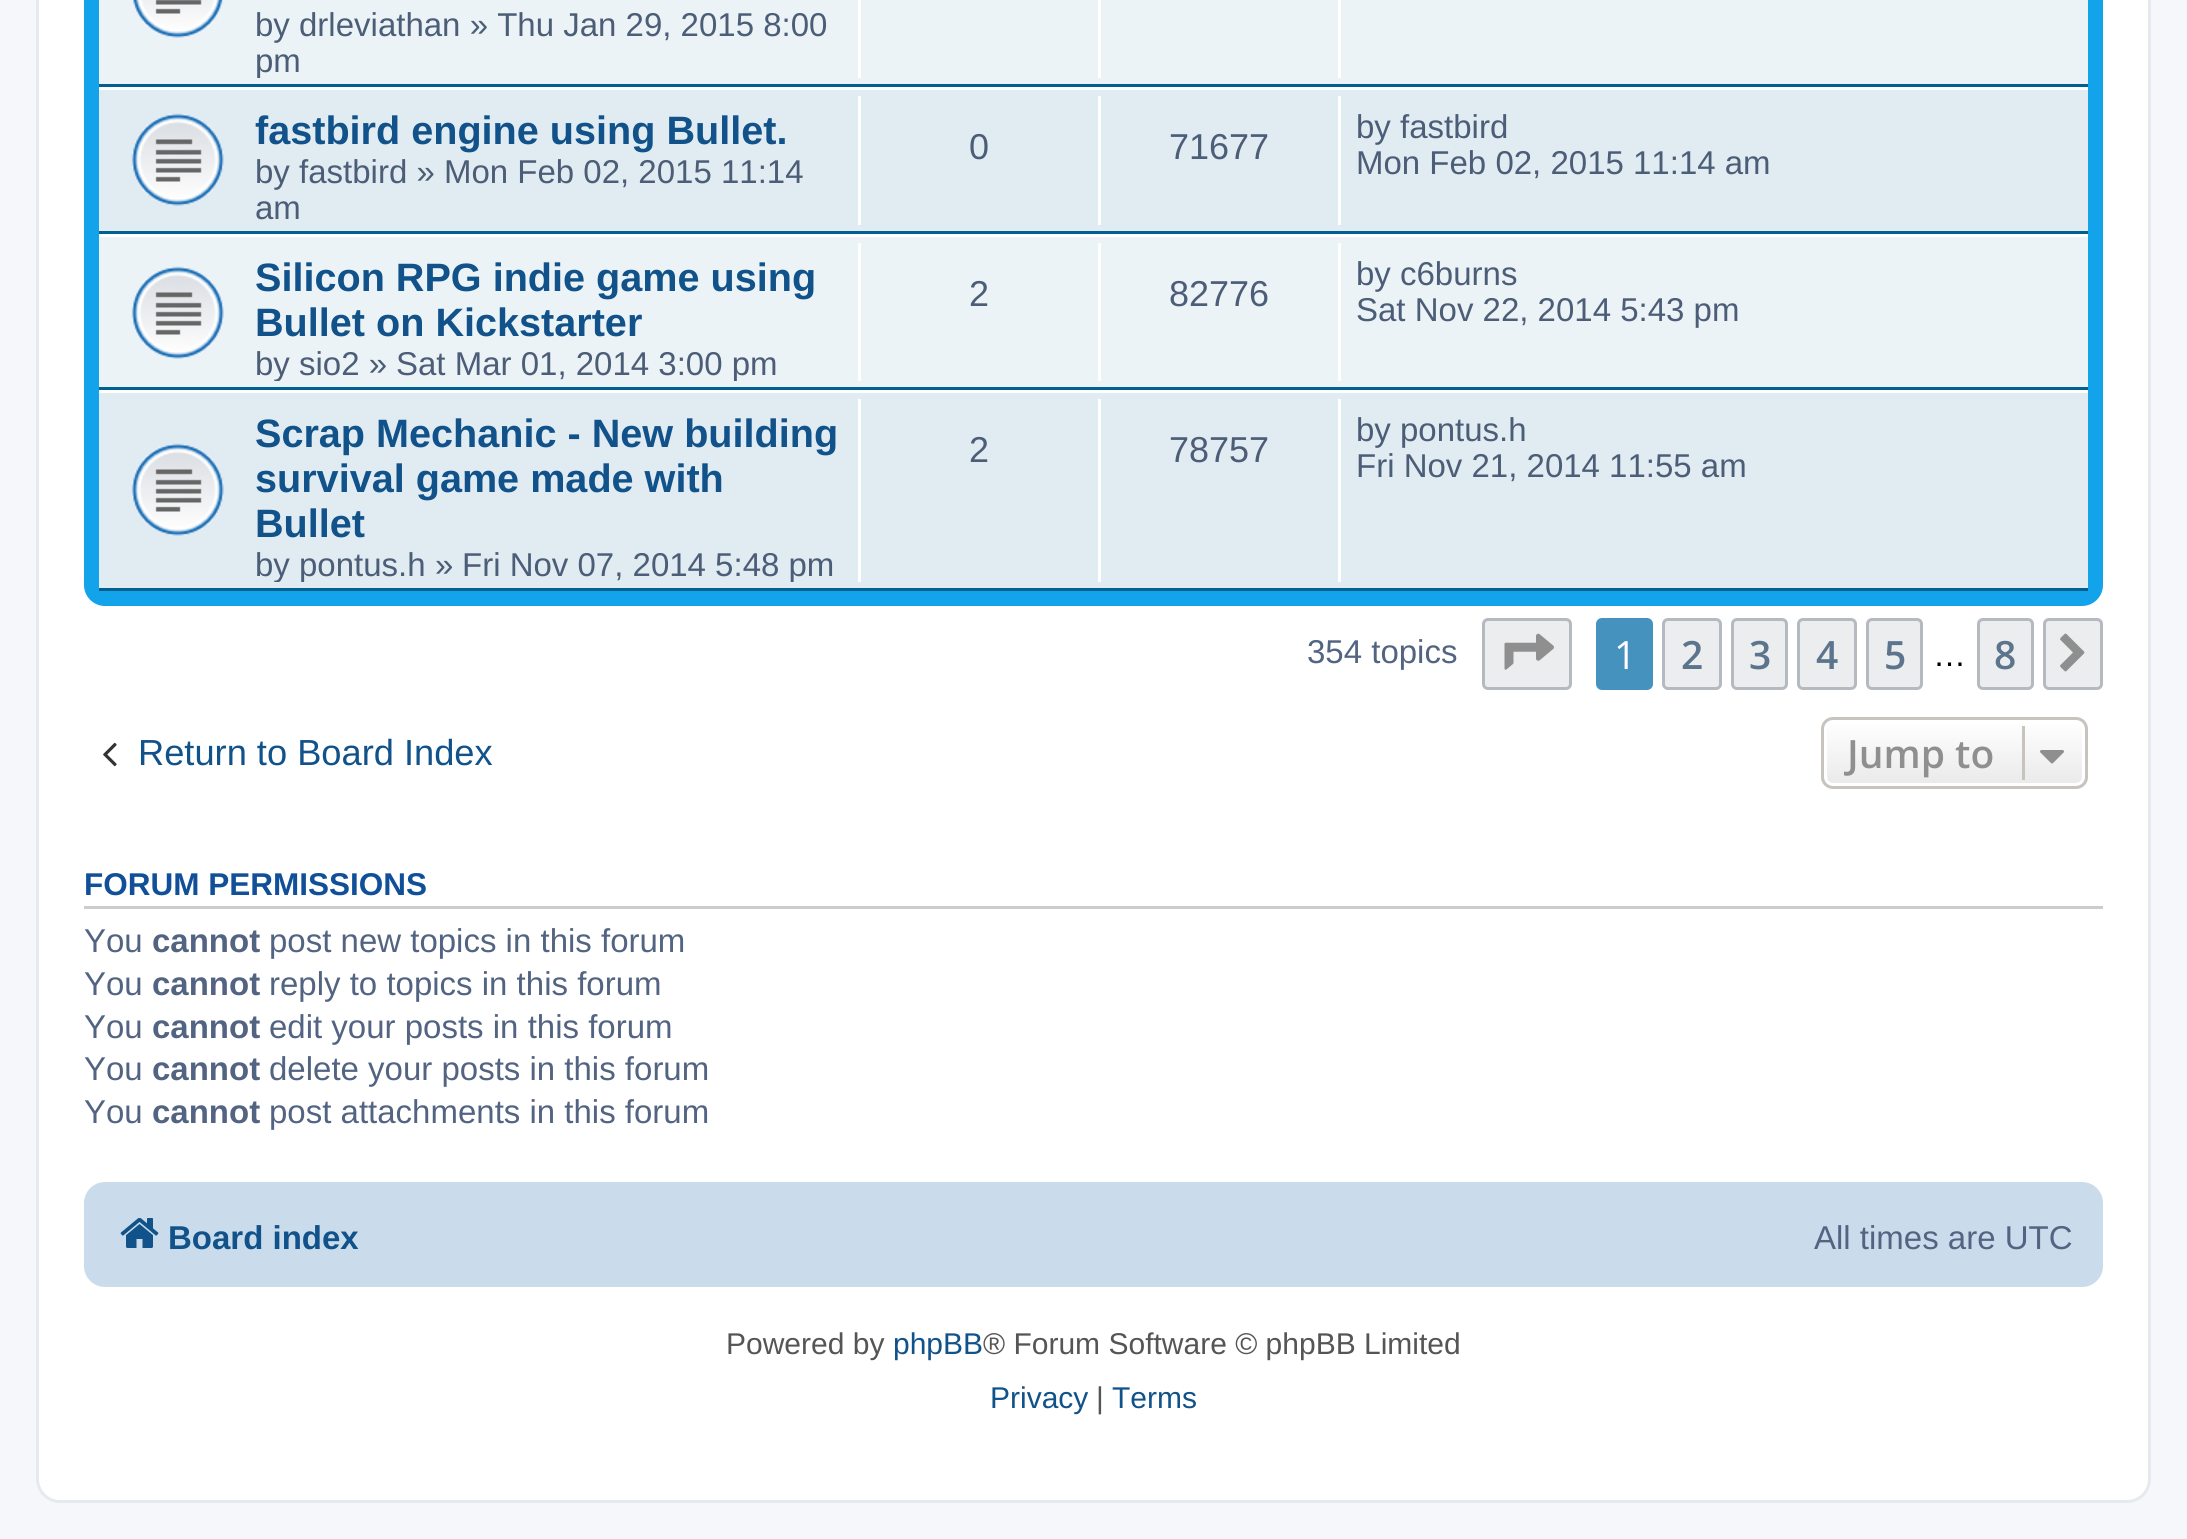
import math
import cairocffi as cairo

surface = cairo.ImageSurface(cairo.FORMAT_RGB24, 2187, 1539)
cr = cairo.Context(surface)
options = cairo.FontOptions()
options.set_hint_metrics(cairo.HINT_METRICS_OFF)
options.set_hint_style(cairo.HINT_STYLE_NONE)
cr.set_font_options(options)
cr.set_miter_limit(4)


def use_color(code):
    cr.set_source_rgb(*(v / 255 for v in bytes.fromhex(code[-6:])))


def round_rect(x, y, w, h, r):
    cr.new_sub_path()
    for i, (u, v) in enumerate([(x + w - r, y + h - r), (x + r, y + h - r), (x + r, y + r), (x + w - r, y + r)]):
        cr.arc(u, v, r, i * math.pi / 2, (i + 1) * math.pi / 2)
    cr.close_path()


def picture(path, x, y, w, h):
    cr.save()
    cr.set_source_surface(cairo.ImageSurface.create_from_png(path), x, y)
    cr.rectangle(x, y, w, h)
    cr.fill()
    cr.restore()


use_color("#f5f7fa")
cr.paint()
use_color("#ffffff")
round_rect(37.5, -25.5, 2112, 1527, 22.5)
cr.fill_preserve()
use_color("#e6e9ed")
cr.set_line_width(3)
cr.stroke()
gradient = cairo.LinearGradient(1093, -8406, 1094, 606)
gradient.add_color_stop_rgba(0, 0.416, 0.808, 1, 1)
gradient.add_color_stop_rgba(0, 0, 0.463, 0.694, 1)
gradient.add_color_stop_rgba(0.03, 0.071, 0.639, 0.922, 1)
gradient.add_color_stop_rgba(1, 0.071, 0.639, 0.922, 1)
cr.set_source(gradient)
round_rect(84, -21, 2019, 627, 21)
cr.fill()
use_color("#ecf3f7")
cr.rectangle(99, 0, 1989, 84)
cr.fill()
use_color("#00608f")
cr.rectangle(99, 84, 1989, 3)
cr.fill()
picture("img1.png", 133, 0, 90, 38)
cr.select_font_face("Liberation Sans")
cr.set_font_size(33)
use_color("#4c5d77")
cr.move_to(255, 36)
cr.show_text("by drleviathan » Thu Jan 29, 2015 8:00")
cr.save()
cr.rectangle(99, 0, 1989, 78)
cr.clip()
cr.move_to(255, 72)
cr.show_text("pm")
cr.restore()
use_color("#ffffff")
cr.rectangle(858, 0, 3, 78)
cr.fill()
cr.rectangle(1098, 0, 3, 78)
cr.fill()
cr.rectangle(1338, 0, 3, 78)
cr.fill()
use_color("#e1ebf2")
cr.rectangle(99, 90, 1989, 141)
cr.fill()
use_color("#ffffff")
cr.rectangle(99, 87, 1989, 3)
cr.fill()
use_color("#00608f")
cr.rectangle(99, 231, 1989, 3)
cr.fill()
picture("img2.png", 131, 113, 93, 93)
cr.select_font_face("Liberation Sans", cairo.FONT_SLANT_NORMAL, cairo.FONT_WEIGHT_BOLD)
cr.set_font_size(39.6)
use_color("#105289")
cr.move_to(255, 144)
cr.show_text("fastbird engine using Bullet.")
cr.select_font_face("Liberation Sans")
cr.set_font_size(33)
use_color("#4c5d77")
cr.move_to(255, 183)
cr.show_text("by fastbird » Mon Feb 02, 2015 11:14")
cr.move_to(255, 219)
cr.show_text("am")
use_color("#ffffff")
cr.rectangle(858, 96, 3, 129)
cr.fill()
cr.set_font_size(36)
use_color("#4c5d77")
cr.move_to(969, 159)
cr.show_text("0")
use_color("#ffffff")
cr.rectangle(1098, 96, 3, 129)
cr.fill()
use_color("#4c5d77")
cr.move_to(1169, 159)
cr.show_text("71677")
use_color("#ffffff")
cr.rectangle(1338, 96, 3, 129)
cr.fill()
cr.set_font_size(33)
use_color("#4c5d77")
cr.move_to(1356, 138)
cr.show_text("by fastbird")
cr.move_to(1356, 174)
cr.show_text("Mon Feb 02, 2015 11:14 am")
use_color("#ecf3f7")
cr.rectangle(99, 237, 1989, 150)
cr.fill()
use_color("#ffffff")
cr.rectangle(99, 234, 1989, 3)
cr.fill()
use_color("#00608f")
cr.rectangle(99, 387, 1989, 3)
cr.fill()
picture("img3.png", 131, 266, 93, 93)
cr.select_font_face("Liberation Sans", cairo.FONT_SLANT_NORMAL, cairo.FONT_WEIGHT_BOLD)
cr.set_font_size(39.6)
use_color("#105289")
cr.move_to(255, 291)
cr.show_text("Silicon RPG indie game using")
cr.move_to(255, 336)
cr.show_text("Bullet on Kickstarter")
cr.save()
cr.rectangle(99, 243, 1989, 138)
cr.clip()
cr.select_font_face("Liberation Sans")
cr.set_font_size(33)
use_color("#4c5d77")
cr.move_to(255, 375)
cr.show_text("by")
cr.restore()
cr.select_font_face("Liberation Sans")
cr.set_font_size(33)
use_color("#4c5d77")
cr.move_to(299, 375)
cr.show_text("sio2 »")
cr.save()
cr.rectangle(99, 243, 1989, 138)
cr.clip()
cr.move_to(396, 375)
cr.show_text("Sat Mar 01, 2014 3:00 pm")
cr.restore()
use_color("#ffffff")
cr.rectangle(858, 243, 3, 138)
cr.fill()
cr.set_font_size(36)
use_color("#4c5d77")
cr.move_to(969, 306)
cr.show_text("2")
use_color("#ffffff")
cr.rectangle(1098, 243, 3, 138)
cr.fill()
use_color("#4c5d77")
cr.move_to(1169, 306)
cr.show_text("82776")
use_color("#ffffff")
cr.rectangle(1338, 243, 3, 138)
cr.fill()
cr.set_font_size(33)
use_color("#4c5d77")
cr.move_to(1356, 285)
cr.show_text("by c6burns")
cr.move_to(1356, 321)
cr.show_text("Sat Nov 22, 2014 5:43 pm")
use_color("#e1ebf2")
cr.rectangle(99, 393, 1989, 195)
cr.fill()
use_color("#ffffff")
cr.rectangle(99, 390, 1989, 3)
cr.fill()
use_color("#00608f")
cr.rectangle(99, 588, 1989, 3)
cr.fill()
picture("img2.png", 131, 443, 93, 93)
cr.select_font_face("Liberation Sans", cairo.FONT_SLANT_NORMAL, cairo.FONT_WEIGHT_BOLD)
cr.set_font_size(39.6)
use_color("#105289")
cr.move_to(255, 447)
cr.show_text("Scrap Mechanic - New building")
cr.move_to(255, 492)
cr.show_text("survival game made with")
cr.move_to(255, 537)
cr.show_text("Bullet")
cr.save()
cr.rectangle(99, 399, 1989, 183)
cr.clip()
cr.select_font_face("Liberation Sans")
cr.set_font_size(33)
use_color("#4c5d77")
cr.move_to(255, 576)
cr.show_text("by pontus.h")
cr.restore()
cr.select_font_face("Liberation Sans")
cr.set_font_size(33)
use_color("#4c5d77")
cr.move_to(435, 576)
cr.show_text("»")
cr.save()
cr.rectangle(99, 399, 1989, 183)
cr.clip()
cr.move_to(462, 576)
cr.show_text("Fri Nov 07, 2014 5:48 pm")
cr.restore()
use_color("#ffffff")
cr.rectangle(858, 399, 3, 183)
cr.fill()
cr.set_font_size(36)
use_color("#4c5d77")
cr.move_to(969, 462)
cr.show_text("2")
use_color("#ffffff")
cr.rectangle(1098, 399, 3, 183)
cr.fill()
use_color("#4c5d77")
cr.move_to(1169, 462)
cr.show_text("78757")
use_color("#ffffff")
cr.rectangle(1338, 399, 3, 183)
cr.fill()
cr.set_font_size(33)
use_color("#4c5d77")
cr.move_to(1356, 441)
cr.show_text("by pontus.h")
cr.move_to(1356, 477)
cr.show_text("Fri Nov 21, 2014 11:55 am")
use_color("#536482")
cr.move_to(1307, 663)
cr.show_text("354 topics")
use_color("#ecedee")
round_rect(1483.5, 619.5, 87, 69, 4.5)
cr.fill_preserve()
use_color("#b4bac0")
cr.stroke()
picture("img4.png", 1504, 633, 50, 37)
use_color("#4692bf")
round_rect(1597.5, 619.5, 54, 69, 4.5)
cr.fill_preserve()
cr.stroke()
cr.select_font_face("Open Sans")
cr.set_font_size(39)
use_color("#ffffff")
cr.move_to(1614, 669)
cr.show_text("1")
use_color("#ecedee")
round_rect(1663.5, 619.5, 57, 69, 4.5)
cr.fill_preserve()
use_color("#b4bac0")
cr.stroke()
cr.select_font_face("Open Sans SemiBold")
use_color("#5c758c")
cr.move_to(1681, 669)
cr.show_text("2")
use_color("#ecedee")
round_rect(1732.5, 619.5, 54, 69, 4.5)
cr.fill_preserve()
use_color("#b4bac0")
cr.stroke()
use_color("#5c758c")
cr.move_to(1749, 669)
cr.show_text("3")
use_color("#ecedee")
round_rect(1798.5, 619.5, 57, 69, 4.5)
cr.fill_preserve()
use_color("#b4bac0")
cr.stroke()
use_color("#5c758c")
cr.move_to(1816, 669)
cr.show_text("4")
use_color("#ecedee")
round_rect(1867.5, 619.5, 54, 69, 4.5)
cr.fill_preserve()
use_color("#b4bac0")
cr.stroke()
use_color("#5c758c")
cr.move_to(1884, 669)
cr.show_text("5")
cr.select_font_face("Liberation Sans")
cr.set_font_size(33)
use_color("#000000")
cr.move_to(1933, 666)
cr.show_text("…")
use_color("#ecedee")
round_rect(1978.5, 619.5, 54, 69, 4.5)
cr.fill_preserve()
use_color("#b4bac0")
cr.stroke()
cr.select_font_face("Open Sans SemiBold")
cr.set_font_size(39)
use_color("#5c758c")
cr.move_to(1994, 669)
cr.show_text("8")
use_color("#ecedee")
round_rect(2044.5, 619.5, 57, 69, 4.5)
cr.fill_preserve()
use_color("#b4bac0")
cr.stroke()
picture("img5.png", 2060, 633, 25, 39)
picture("img6.png", 103, 742, 14, 25)
cr.select_font_face("Liberation Sans")
cr.set_font_size(36.25)
use_color("#105289")
cr.move_to(138, 765)
cr.show_text("Return to Board Index")
cr.save()
round_rect(1821, 717, 267, 72, 12)
cr.clip()
gradient = cairo.LinearGradient(1955, 720, 1955, 786)
gradient.add_color_stop_rgba(0, 1, 1, 1, 1)
gradient.add_color_stop_rgba(1, 0.914, 0.914, 0.914, 1)
cr.set_source(gradient)
cr.rectangle(1821, 720, 267, 66)
cr.fill()
cr.restore()
round_rect(1825.5, 721.5, 258, 63, 7.5)
use_color("#ffffff")
cr.stroke()
round_rect(1822.5, 718.5, 264, 69, 10.5)
use_color("#c7c3bf")
cr.stroke()
cr.select_font_face("Open Sans SemiBold")
cr.set_font_size(39)
use_color("#8f8f8f")
cr.move_to(1847, 768)
cr.show_text("Jump to")
use_color("#c7c3bf")
cr.rectangle(2022, 726, 3, 54)
cr.fill()
picture("img7.png", 2040, 750, 24, 14)
use_color("#cccccc")
cr.rectangle(84, 906, 2019, 3)
cr.fill()
cr.select_font_face("Liberation Sans", cairo.FONT_SLANT_NORMAL, cairo.FONT_WEIGHT_BOLD)
cr.set_font_size(31.5)
use_color("#115098")
cr.move_to(84, 895)
cr.show_text("FORUM PERMISSIONS")
cr.select_font_face("Liberation Sans")
cr.set_font_size(33)
use_color("#536482")
cr.move_to(84, 952)
cr.show_text("You")
cr.select_font_face("Liberation Sans", cairo.FONT_SLANT_NORMAL, cairo.FONT_WEIGHT_BOLD)
cr.move_to(152, 952)
cr.show_text("cannot")
cr.select_font_face("Liberation Sans")
cr.move_to(269, 952)
cr.show_text("post new topics in this forum")
cr.move_to(84, 995)
cr.show_text("You")
cr.select_font_face("Liberation Sans", cairo.FONT_SLANT_NORMAL, cairo.FONT_WEIGHT_BOLD)
cr.move_to(152, 995)
cr.show_text("cannot")
cr.select_font_face("Liberation Sans")
cr.move_to(269, 995)
cr.show_text("reply to topics in this forum")
cr.move_to(84, 1038)
cr.show_text("You")
cr.select_font_face("Liberation Sans", cairo.FONT_SLANT_NORMAL, cairo.FONT_WEIGHT_BOLD)
cr.move_to(152, 1038)
cr.show_text("cannot")
cr.select_font_face("Liberation Sans")
cr.move_to(269, 1038)
cr.show_text("edit your posts in this forum")
cr.move_to(84, 1080)
cr.show_text("You")
cr.select_font_face("Liberation Sans", cairo.FONT_SLANT_NORMAL, cairo.FONT_WEIGHT_BOLD)
cr.move_to(152, 1080)
cr.show_text("cannot")
cr.select_font_face("Liberation Sans")
cr.move_to(269, 1080)
cr.show_text("delete your posts in this forum")
cr.move_to(84, 1123)
cr.show_text("You")
cr.select_font_face("Liberation Sans", cairo.FONT_SLANT_NORMAL, cairo.FONT_WEIGHT_BOLD)
cr.move_to(152, 1123)
cr.show_text("cannot")
cr.select_font_face("Liberation Sans")
cr.move_to(269, 1123)
cr.show_text("post attachments in this forum")
use_color("#cadceb")
round_rect(84, 1182, 2019, 105, 21)
cr.fill()
picture("img8.png", 120, 1217, 39, 31)
cr.select_font_face("Liberation Sans", cairo.FONT_SLANT_NORMAL, cairo.FONT_WEIGHT_BOLD)
use_color("#105289")
cr.move_to(168, 1249)
cr.show_text("Board index")
cr.select_font_face("Liberation Sans")
use_color("#536482")
cr.move_to(1814, 1249)
cr.show_text("All times are UTC")
cr.set_font_size(30)
use_color("#555555")
cr.move_to(726, 1354)
cr.show_text("Powered by")
use_color("#105289")
cr.move_to(893, 1354)
cr.show_text("phpBB")
use_color("#555555")
cr.move_to(983, 1354)
cr.show_text("® Forum Software © phpBB Limited")
use_color("#105289")
cr.move_to(990, 1408)
cr.show_text("Privacy")
use_color("#555555")
cr.move_to(1096, 1408)
cr.show_text("|")
use_color("#105289")
cr.move_to(1112, 1408)
cr.show_text("Terms")
surface.write_to_png("result.png")
